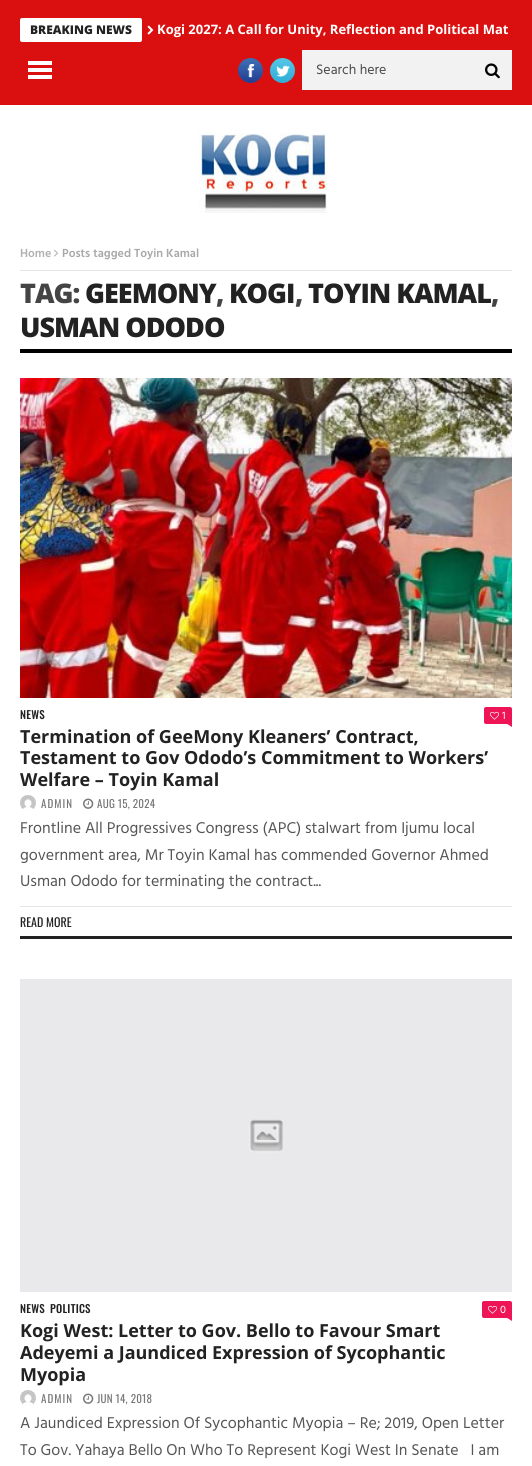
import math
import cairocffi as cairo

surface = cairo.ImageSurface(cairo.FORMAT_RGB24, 532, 1466)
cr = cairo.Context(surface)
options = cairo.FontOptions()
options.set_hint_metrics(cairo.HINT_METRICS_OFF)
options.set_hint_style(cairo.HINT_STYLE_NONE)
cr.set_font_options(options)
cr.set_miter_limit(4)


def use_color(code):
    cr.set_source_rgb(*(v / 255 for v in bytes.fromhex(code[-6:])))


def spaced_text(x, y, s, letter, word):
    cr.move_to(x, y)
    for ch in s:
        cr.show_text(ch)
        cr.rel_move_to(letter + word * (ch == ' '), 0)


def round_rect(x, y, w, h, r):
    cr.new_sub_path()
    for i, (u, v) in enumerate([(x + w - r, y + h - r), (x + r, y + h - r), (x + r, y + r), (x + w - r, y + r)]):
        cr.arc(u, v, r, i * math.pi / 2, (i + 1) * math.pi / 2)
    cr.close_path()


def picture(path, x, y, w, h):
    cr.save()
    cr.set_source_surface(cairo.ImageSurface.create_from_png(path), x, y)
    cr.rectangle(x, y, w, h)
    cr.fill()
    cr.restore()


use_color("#ffffff")
cr.paint()
use_color("#da1010")
cr.rectangle(0, 0, 532, 105)
cr.fill()
use_color("#ffffff")
round_rect(20, 18, 122, 24, 2)
cr.fill()
cr.select_font_face("Open Sans ExtraBold")
cr.set_font_size(12)
use_color("#222222")
cr.move_to(30, 34)
cr.show_text("BREAKING NEWS")
picture("img1.png", 147, 25, 7, 10)
cr.select_font_face("Open Sans", cairo.FONT_SLANT_NORMAL, cairo.FONT_WEIGHT_BOLD)
cr.set_font_size(13)
use_color("#ffffff")
cr.move_to(157, 34)
cr.show_text("Kogi 2027: A Call for Unity, Reflection and Political Mat")
cr.rectangle(28, 61, 24, 4)
cr.fill()
cr.rectangle(28, 68, 24, 4)
cr.fill()
cr.rectangle(28, 75, 24, 4)
cr.fill()
picture("img2.png", 238, 58, 25, 25)
picture("img3.png", 270, 58, 25, 25)
use_color("#f2f2f2")
cr.rectangle(302, 50, 210, 40)
cr.fill()
cr.select_font_face("Hind")
cr.set_font_size(14)
use_color("#4a4a4a")
cr.move_to(316, 74)
cr.show_text("Search here")
picture("img4.png", 485, 63, 15, 16)
picture("img5.png", 199, 133, 128, 80)
use_color("#e6e6e6")
cr.rectangle(20, 270, 492, 1)
cr.fill()
cr.select_font_face("Hind SemiBold")
cr.set_font_size(12)
use_color("#b1b1b1")
cr.move_to(20, 257)
cr.show_text("Home")
picture("img6.png", 54, 249, 4, 8)
use_color("#a8a8a8")
cr.move_to(62, 257)
cr.show_text("Posts tagged Toyin Kamal")
use_color("#000000")
cr.rectangle(20, 349, 492, 4)
cr.fill()
cr.select_font_face("Open Sans ExtraBold")
cr.set_font_size(27)
use_color("#444444")
spaced_text(20, 303, "TAG:", -1, 0)
use_color("#222222")
spaced_text(85, 303, "GEEMONY", -1, 0)
use_color("#444444")
spaced_text(216, 303, ",", -1, 0)
use_color("#222222")
spaced_text(229, 303, "KOGI", -1, 0)
use_color("#444444")
spaced_text(295, 303, ",", -1, 0)
use_color("#222222")
spaced_text(308, 303, "TOYIN KAMAL", -1, 0)
use_color("#444444")
spaced_text(491, 303, ",", -1, 0)
use_color("#222222")
spaced_text(20, 337, "USMAN ODODO", -1, 0)
picture("img7.png", 20, 378, 492, 320)
cr.select_font_face("Oswald Medium")
cr.set_font_size(11)
spaced_text(20, 719, "NEWS", 0.25, 0)
use_color("#ed1556")
round_rect(484, 707, 28, 17, 2)
cr.fill()
picture("img8.png", 490, 711, 9, 9)
cr.select_font_face("Hind")
use_color("#ffffff")
cr.move_to(502, 719)
cr.show_text("1")
use_color("#ed1556")
cr.new_path()
cr.move_to(504, 722)
cr.line_to(512, 722)
cr.line_to(512, 727)
cr.close_path()
cr.fill()
cr.select_font_face("Open Sans", cairo.FONT_SLANT_NORMAL, cairo.FONT_WEIGHT_BOLD)
cr.set_font_size(18)
use_color("#222222")
cr.move_to(20, 743)
cr.show_text("Termination of GeeMony Kleaners’ Contract,")
cr.move_to(20, 764)
cr.show_text("Testament to Gov Ododo’s Commitment to Workers’")
cr.move_to(20, 786)
cr.show_text("Welfare – Toyin Kamal")
picture("img9.png", 20, 795, 16, 16)
cr.select_font_face("Oswald")
cr.set_font_size(11)
use_color("#777777")
spaced_text(41, 808, "ADMIN", 1, 0)
picture("img10.png", 83, 798, 11, 11)
spaced_text(97, 808, "AUG 15, 2024", 0.25, 0)
cr.select_font_face("Hind")
cr.set_font_size(16)
use_color("#555555")
cr.move_to(20, 833)
cr.show_text("Frontline All Progressives Congress (APC) stalwart from Ijumu local")
cr.move_to(20, 860)
cr.show_text("government area, Mr Toyin Kamal has commended Governor Ahmed")
cr.move_to(20, 886)
cr.show_text("Usman Ododo for terminating the contract...")
use_color("#e6e6e6")
cr.rectangle(20, 906, 492, 1)
cr.fill()
use_color("#222222")
cr.rectangle(20, 936, 492, 3)
cr.fill()
cr.select_font_face("Oswald")
cr.set_font_size(12)
cr.move_to(20, 927)
cr.show_text("READ MORE")
picture("img11.png", 20, 979, 492, 313)
cr.select_font_face("Oswald Medium")
cr.set_font_size(11)
spaced_text(20, 1313, "NEWS", 0.25, 0)
spaced_text(50, 1313, "POLITICS", 0.25, 0)
use_color("#ed1556")
round_rect(482, 1301, 30, 17, 2)
cr.fill()
picture("img8.png", 488, 1305, 9, 9)
cr.select_font_face("Hind")
use_color("#ffffff")
cr.move_to(500, 1313)
cr.show_text("0")
use_color("#ed1556")
cr.new_path()
cr.move_to(504, 1316)
cr.line_to(512, 1316)
cr.line_to(512, 1321)
cr.close_path()
cr.fill()
cr.select_font_face("Open Sans", cairo.FONT_SLANT_NORMAL, cairo.FONT_WEIGHT_BOLD)
cr.set_font_size(18)
use_color("#222222")
cr.move_to(20, 1337)
cr.show_text("Kogi West: Letter to Gov. Bello to Favour Smart")
cr.move_to(20, 1359)
cr.show_text("Adeyemi a Jaundiced Expression of Sycophantic")
cr.move_to(20, 1381)
cr.show_text("Myopia")
picture("img9.png", 20, 1390, 16, 16)
cr.select_font_face("Oswald")
cr.set_font_size(11)
use_color("#777777")
spaced_text(41, 1403, "ADMIN", 1, 0)
picture("img10.png", 83, 1393, 11, 11)
spaced_text(97, 1403, "JUN 14, 2018", 0.25, 0)
cr.select_font_face("Hind")
cr.set_font_size(16)
use_color("#555555")
cr.move_to(20, 1428)
cr.show_text("A Jaundiced Expression Of Sycophantic Myopia – Re; 2019, Open Letter")
cr.move_to(20, 1455)
cr.show_text("To Gov. Yahaya Bello On Who To Represent Kogi West In Senate   I am")
surface.write_to_png("result.png")
